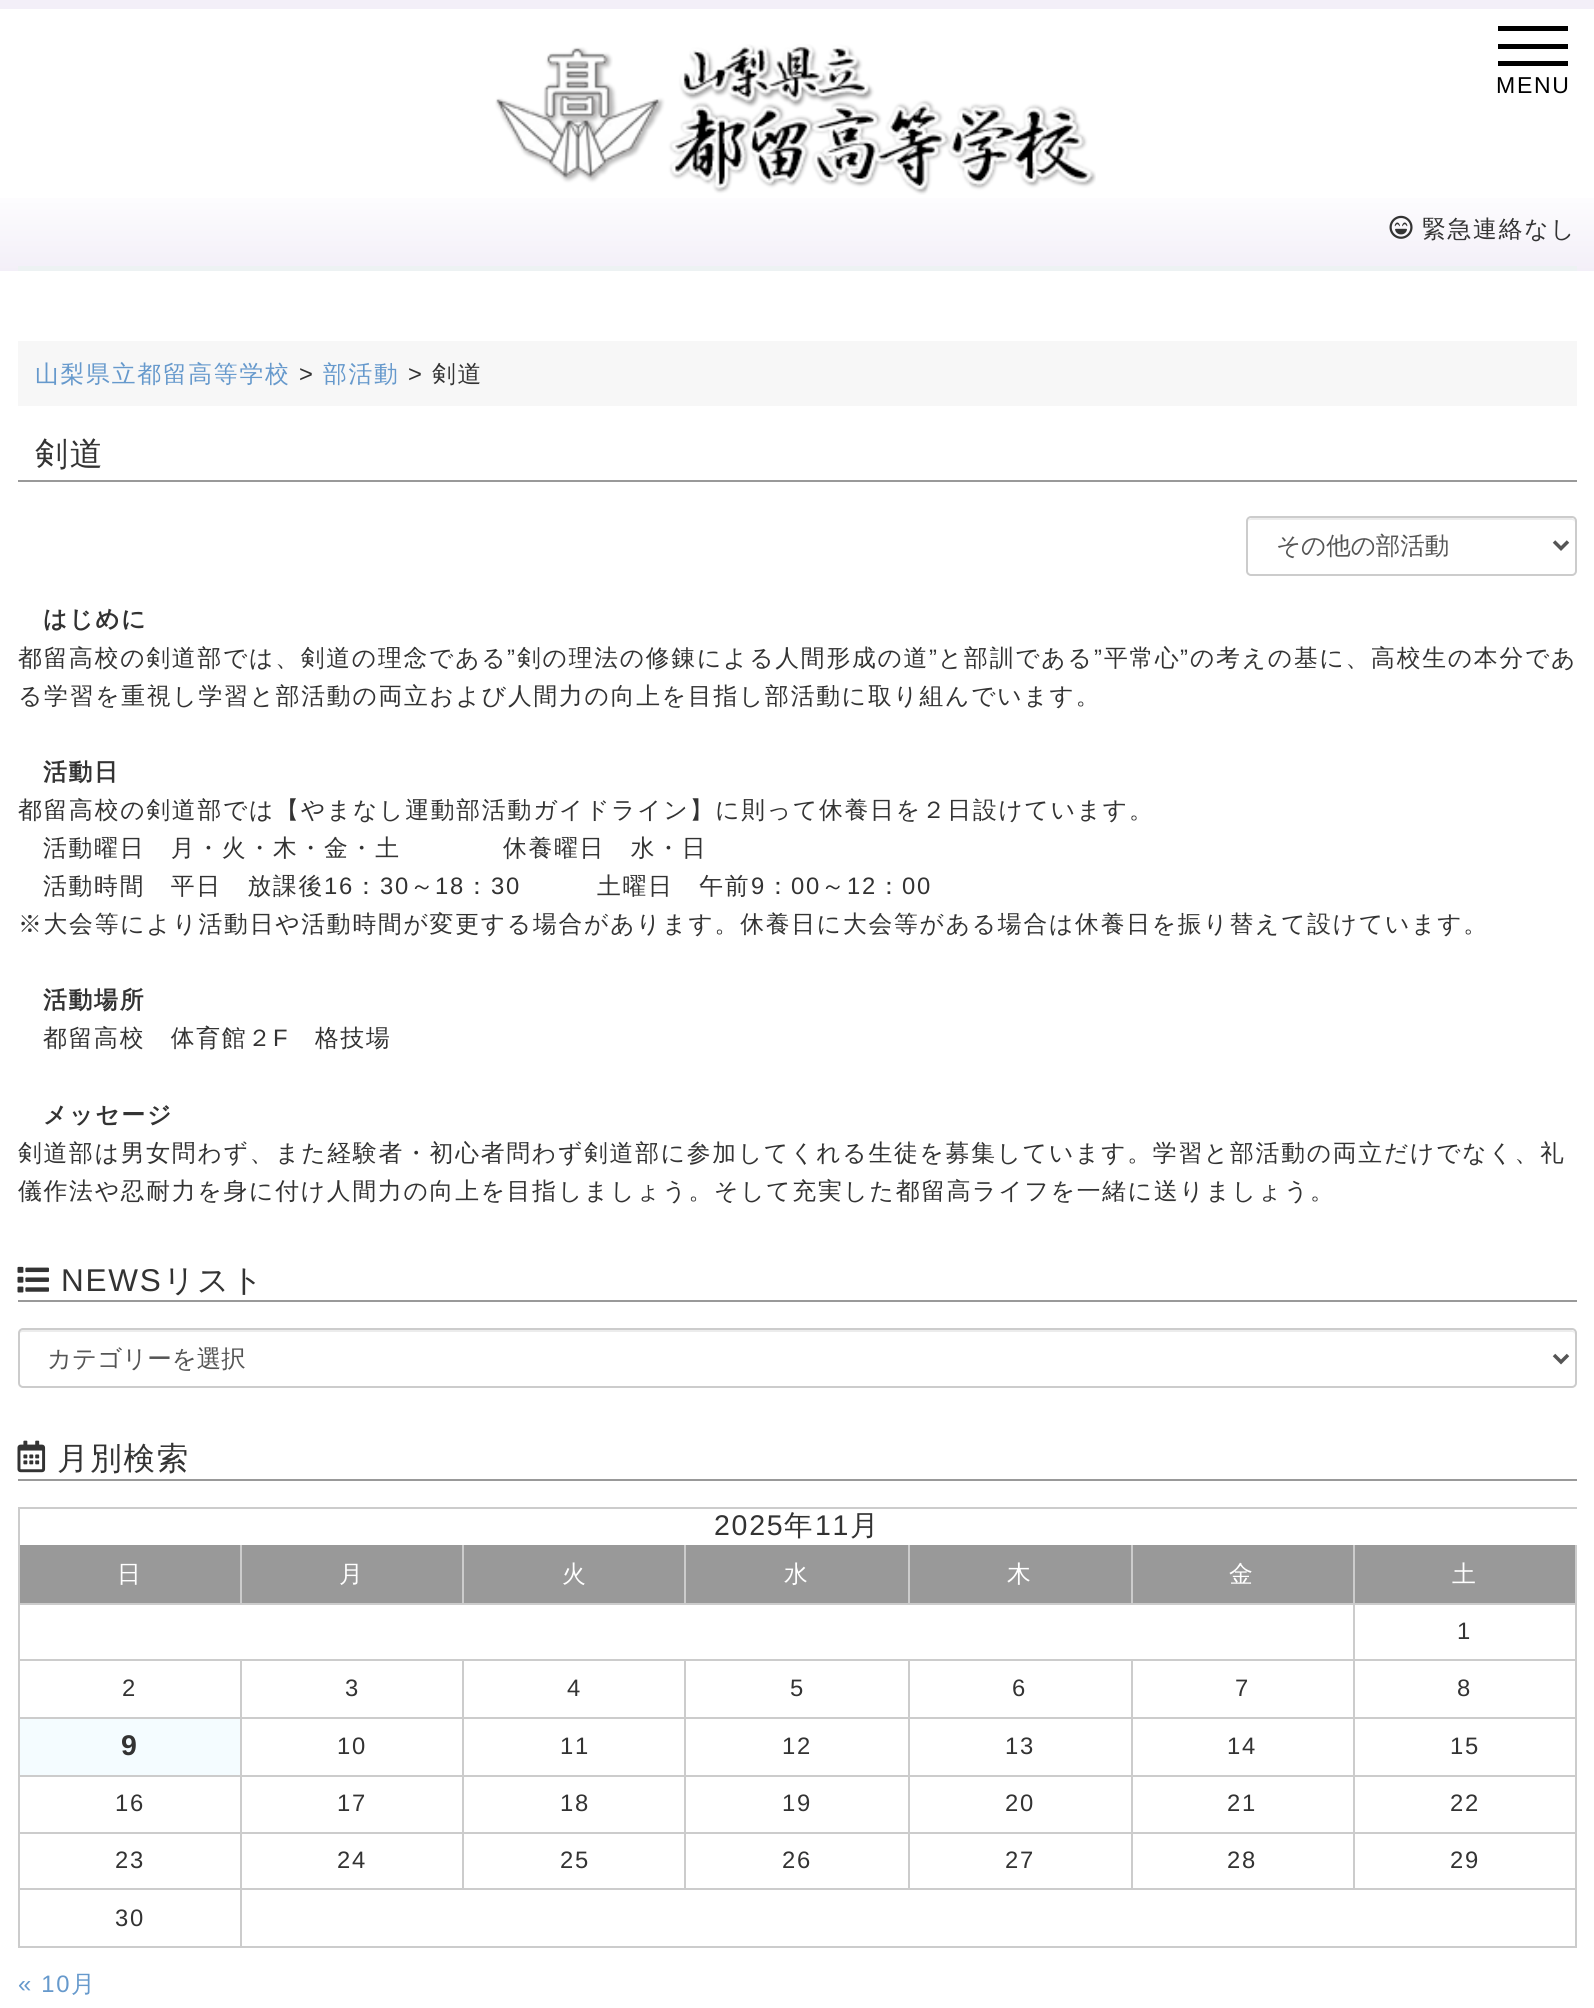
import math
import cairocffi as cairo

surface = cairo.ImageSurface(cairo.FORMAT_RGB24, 1594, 2008)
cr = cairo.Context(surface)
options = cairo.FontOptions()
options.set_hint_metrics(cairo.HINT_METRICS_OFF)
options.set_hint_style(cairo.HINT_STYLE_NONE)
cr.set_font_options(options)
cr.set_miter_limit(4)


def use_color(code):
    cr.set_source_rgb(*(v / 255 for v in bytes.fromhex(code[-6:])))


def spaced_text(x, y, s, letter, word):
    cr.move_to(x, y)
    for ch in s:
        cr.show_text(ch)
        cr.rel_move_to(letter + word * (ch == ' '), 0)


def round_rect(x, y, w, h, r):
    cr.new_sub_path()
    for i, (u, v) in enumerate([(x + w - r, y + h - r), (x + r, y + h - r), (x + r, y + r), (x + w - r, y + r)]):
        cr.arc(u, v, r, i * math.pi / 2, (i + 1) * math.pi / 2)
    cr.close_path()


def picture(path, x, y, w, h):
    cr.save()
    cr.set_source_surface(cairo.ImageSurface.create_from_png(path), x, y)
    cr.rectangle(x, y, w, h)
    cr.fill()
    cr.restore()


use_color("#ffffff")
cr.paint()
use_color("#000000")
cr.rectangle(1498, 26, 70, 5)
cr.fill()
cr.rectangle(1498, 44, 70, 5)
cr.fill()
cr.rectangle(1498, 61, 70, 5)
cr.fill()
cr.select_font_face("Liberation Sans")
cr.set_font_size(23)
spaced_text(1496, 93, "MENU", 1.75, 0)
gradient = cairo.LinearGradient(797, 9, 797, 271)
gradient.add_color_stop_rgba(0, 1, 1, 1, 1)
gradient.add_color_stop_rgba(0.67, 1, 1, 1, 1)
gradient.add_color_stop_rgba(1, 0.953, 0.937, 0.973, 1)
cr.set_source(gradient)
cr.rectangle(0, 198, 1594, 73)
cr.fill()
use_color("#f3eff8")
cr.rectangle(0, 0, 1594, 9)
cr.fill()
use_color("#edf2f3")
cr.rectangle(18, 266, 1559, 5)
cr.fill()
picture("img1.png", 495, 44, 601, 151)
picture("img2.png", 1389, 215, 24, 24)
cr.select_font_face("WenQuanYi Zen Hei Medium")
cr.set_font_size(23.8)
use_color("#333333")
spaced_text(1422, 237, "緊急連絡なし", 1.75, 0)
use_color("#f7f7f7")
cr.rectangle(18, 341, 1559, 65)
cr.fill()
use_color("#6699cc")
spaced_text(35, 382, "山梨県立都留高等学校", 1.75, 0)
cr.select_font_face("Liberation Sans")
use_color("#333333")
spaced_text(299, 382, ">", 1.75, 0)
cr.select_font_face("WenQuanYi Zen Hei Medium")
use_color("#6699cc")
spaced_text(323, 382, "部活動", 1.75, 0)
cr.select_font_face("Liberation Sans")
use_color("#333333")
spaced_text(408, 382, ">", 1.75, 0)
cr.select_font_face("WenQuanYi Zen Hei Medium")
spaced_text(432, 382, "剣道", 1.75, 0)
use_color("#999999")
cr.rectangle(18, 480, 1559, 2)
cr.fill()
cr.set_font_size(33)
use_color("#333333")
spaced_text(35, 465, "剣道", 1.75, 0)
use_color("#ececec")
cr.new_path()
cr.move_to(1251, 520)
cr.line_to(1572, 520)
cr.curve_to(1573, 520, 1575, 521, 1575, 523)
cr.line_to(1575, 522)
cr.curve_to(1575, 520, 1573, 518, 1571, 518)
cr.line_to(1252, 518)
cr.curve_to(1250, 518, 1248, 520, 1248, 522)
cr.line_to(1248, 523)
cr.curve_to(1248, 521, 1249, 520, 1251, 520)
cr.close_path()
cr.fill()
round_rect(1247, 517, 329, 58, 4)
use_color("#cccccc")
cr.stroke()
cr.new_path()
cr.move_to(1554, 541.5)
cr.line_to(1561, 548.5)
cr.line_to(1568, 541.5)
use_color("#555555")
cr.set_line_width(3.5)
cr.stroke()
cr.set_font_size(24.5)
cr.move_to(1276, 554)
cr.show_text("その他の部活動")
cr.select_font_face("WenQuanYi Zen Hei", cairo.FONT_SLANT_NORMAL, cairo.FONT_WEIGHT_BOLD)
cr.set_font_size(23.8)
use_color("#333333")
spaced_text(43, 627, "はじめに", 1.75, 0)
cr.select_font_face("WenQuanYi Zen Hei Medium")
spaced_text(18, 666, "都留高校の剣道部では、剣道の理念である", 1.75, 0)
cr.select_font_face("Liberation Sans")
spaced_text(507, 666, "”", 1.75, 0)
cr.select_font_face("WenQuanYi Zen Hei Medium")
spaced_text(517, 666, "剣の理法の修錬による人間形成の道", 1.75, 0)
cr.select_font_face("Liberation Sans")
spaced_text(929, 666, "”", 1.75, 0)
cr.select_font_face("WenQuanYi Zen Hei Medium")
spaced_text(938, 666, "と部訓である", 1.75, 0)
cr.select_font_face("Liberation Sans")
spaced_text(1094, 666, "”", 1.75, 0)
cr.select_font_face("WenQuanYi Zen Hei Medium")
spaced_text(1104, 666, "平常心", 1.75, 0)
cr.select_font_face("Liberation Sans")
spaced_text(1180, 666, "”", 1.75, 0)
cr.select_font_face("WenQuanYi Zen Hei Medium")
spaced_text(1190, 666, "の考えの基に、高校生の本分であ", 1.75, 0)
spaced_text(18, 704, "る学習を重視し学習と部活動の両立および人間力の向上を目指し部活動に取り組んでいます。", 1.75, 0)
cr.select_font_face("WenQuanYi Zen Hei", cairo.FONT_SLANT_NORMAL, cairo.FONT_WEIGHT_BOLD)
spaced_text(43, 780, "活動日", 1.75, 0)
cr.select_font_face("WenQuanYi Zen Hei Medium")
spaced_text(18, 818, "都留高校の剣道部では【やまなし運動部活動ガイドライン】に則って休養日を２日設けています。", 1.75, 0)
spaced_text(43, 856, "活動曜日　月・火・木・金・土　　　　休養曜日　水・日", 1.75, 0)
spaced_text(43, 894, "活動時間　平日　放課後", 1.75, 0)
cr.select_font_face("Liberation Sans")
spaced_text(324, 894, "16", 1.75, 0)
cr.select_font_face("WenQuanYi Zen Hei Medium")
spaced_text(354, 894, "：", 1.75, 0)
cr.select_font_face("Liberation Sans")
spaced_text(380, 894, "30", 1.75, 0)
cr.select_font_face("WenQuanYi Zen Hei Medium")
spaced_text(410, 894, "～", 1.75, 0)
cr.select_font_face("Liberation Sans")
spaced_text(435, 894, "18", 1.75, 0)
cr.select_font_face("WenQuanYi Zen Hei Medium")
spaced_text(465, 894, "：", 1.75, 0)
cr.select_font_face("Liberation Sans")
spaced_text(491, 894, "30", 1.75, 0)
cr.select_font_face("WenQuanYi Zen Hei Medium")
spaced_text(597, 894, "土曜日　午前", 1.75, 0)
cr.select_font_face("Liberation Sans")
spaced_text(751, 894, "9", 1.75, 0)
cr.select_font_face("WenQuanYi Zen Hei Medium")
spaced_text(766, 894, "：", 1.75, 0)
cr.select_font_face("Liberation Sans")
spaced_text(791, 894, "00", 1.75, 0)
cr.select_font_face("WenQuanYi Zen Hei Medium")
spaced_text(821, 894, "～", 1.75, 0)
cr.select_font_face("Liberation Sans")
spaced_text(847, 894, "12", 1.75, 0)
cr.select_font_face("WenQuanYi Zen Hei Medium")
spaced_text(877, 894, "：", 1.75, 0)
cr.select_font_face("Liberation Sans")
spaced_text(902, 894, "00", 1.75, 0)
cr.select_font_face("WenQuanYi Zen Hei Medium")
spaced_text(18, 932, "※大会等により活動日や活動時間が変更する場合があります。休養日に大会等がある場合は休養日を振り替えて設けています。", 1.75, 0)
cr.select_font_face("WenQuanYi Zen Hei", cairo.FONT_SLANT_NORMAL, cairo.FONT_WEIGHT_BOLD)
spaced_text(43, 1008, "活動場所", 1.75, 0)
cr.select_font_face("WenQuanYi Zen Hei Medium")
spaced_text(43, 1046, "都留高校　体育館２", 1.75, 0)
cr.select_font_face("Liberation Sans")
spaced_text(273, 1046, "F", 1.75, 0)
cr.select_font_face("WenQuanYi Zen Hei Medium")
spaced_text(315, 1046, "格技場", 1.75, 0)
cr.select_font_face("WenQuanYi Zen Hei", cairo.FONT_SLANT_NORMAL, cairo.FONT_WEIGHT_BOLD)
spaced_text(43, 1123, "メッセージ", 1.75, 0)
cr.select_font_face("WenQuanYi Zen Hei Medium")
spaced_text(18, 1161, "剣道部は男女問わず、また経験者・初心者問わず剣道部に参加してくれる生徒を募集しています。学習と部活動の両立だけでなく、礼", 1.75, 0)
spaced_text(18, 1199, "儀作法や忍耐力を身に付け人間力の向上を目指しましょう。そして充実した都留高ライフを一緒に送りましょう。", 1.75, 0)
use_color("#999999")
cr.rectangle(18, 1300, 1559, 2)
cr.fill()
picture("img3.png", 17, 1266, 32, 27)
cr.select_font_face("Liberation Sans")
cr.set_font_size(31.5)
use_color("#333333")
spaced_text(61, 1291, "NEWS", 1.75, 0)
cr.select_font_face("WenQuanYi Zen Hei Medium")
spaced_text(163, 1291, "リスト", 1.75, 0)
use_color("#ececec")
cr.new_path()
cr.move_to(23, 1332)
cr.line_to(1572, 1332)
cr.curve_to(1573, 1332, 1575, 1333, 1575, 1335)
cr.line_to(1575, 1334)
cr.curve_to(1575, 1332, 1573, 1330, 1571, 1330)
cr.line_to(23, 1330)
cr.curve_to(21, 1330, 19, 1332, 19, 1334)
cr.line_to(19, 1335)
cr.curve_to(19, 1333, 21, 1332, 23, 1332)
cr.close_path()
cr.fill()
round_rect(19, 1329, 1557, 58, 4)
use_color("#cccccc")
cr.set_line_width(2)
cr.stroke()
cr.new_path()
cr.move_to(1554, 1355)
cr.line_to(1561, 1362)
cr.line_to(1568, 1355)
use_color("#555555")
cr.set_line_width(3.5)
cr.stroke()
cr.set_font_size(24.5)
cr.move_to(47, 1367)
cr.show_text("カテゴリーを選択")
use_color("#999999")
cr.rectangle(18, 1479, 1559, 2)
cr.fill()
picture("img4.png", 17, 1440, 29, 33)
cr.set_font_size(31.5)
use_color("#333333")
spaced_text(57, 1469, "月別検索", 1.75, 0)
use_color("#cccccc")
cr.rectangle(18, 1507, 1559, 2)
cr.fill()
cr.rectangle(18, 1507, 2, 441)
cr.fill()
cr.select_font_face("Liberation Sans")
cr.set_font_size(28.5)
use_color("#333333")
spaced_text(714, 1535, "2025", 1.75, 0)
cr.select_font_face("WenQuanYi Zen Hei Medium")
spaced_text(784, 1535, "年", 1.75, 0)
cr.select_font_face("Liberation Sans")
spaced_text(815, 1535, "11", 1.75, 0)
cr.select_font_face("WenQuanYi Zen Hei Medium")
spaced_text(850, 1535, "月", 1.75, 0)
use_color("#999999")
cr.rectangle(20, 1545, 220, 58)
cr.fill()
use_color("#cccccc")
cr.rectangle(1575, 1545, 2, 403)
cr.fill()
cr.rectangle(1353, 1888, 224, 2)
cr.fill()
cr.rectangle(1353, 1832, 2, 58)
cr.fill()
cr.rectangle(1353, 1832, 224, 2)
cr.fill()
cr.rectangle(1353, 1775, 2, 59)
cr.fill()
cr.rectangle(1353, 1775, 224, 2)
cr.fill()
cr.rectangle(1353, 1717, 2, 59)
cr.fill()
cr.rectangle(1353, 1717, 224, 2)
cr.fill()
cr.rectangle(1353, 1659, 2, 60)
cr.fill()
cr.rectangle(1353, 1659, 224, 2)
cr.fill()
cr.rectangle(1353, 1603, 2, 58)
cr.fill()
cr.rectangle(1353, 1603, 224, 2)
cr.fill()
cr.rectangle(1353, 1545, 2, 60)
cr.fill()
cr.rectangle(1131, 1603, 224, 2)
cr.fill()
cr.rectangle(1131, 1545, 2, 60)
cr.fill()
cr.rectangle(908, 1603, 224, 2)
cr.fill()
cr.rectangle(908, 1545, 2, 60)
cr.fill()
cr.rectangle(684, 1603, 226, 2)
cr.fill()
cr.rectangle(684, 1545, 2, 60)
cr.fill()
cr.rectangle(462, 1603, 224, 2)
cr.fill()
cr.rectangle(462, 1545, 2, 60)
cr.fill()
cr.rectangle(240, 1603, 224, 2)
cr.fill()
cr.rectangle(240, 1545, 2, 60)
cr.fill()
cr.rectangle(18, 1603, 224, 2)
cr.fill()
cr.set_font_size(23.8)
use_color("#ffffff")
spaced_text(117, 1582, "日", 1.75, 0)
use_color("#999999")
cr.rectangle(242, 1545, 220, 58)
cr.fill()
use_color("#ffffff")
spaced_text(339, 1582, "月", 1.75, 0)
use_color("#999999")
cr.rectangle(464, 1545, 220, 58)
cr.fill()
use_color("#ffffff")
spaced_text(562, 1582, "火", 1.75, 0)
use_color("#999999")
cr.rectangle(686, 1545, 222, 58)
cr.fill()
use_color("#ffffff")
spaced_text(784, 1582, "水", 1.75, 0)
use_color("#999999")
cr.rectangle(910, 1545, 221, 58)
cr.fill()
use_color("#ffffff")
spaced_text(1007, 1582, "木", 1.75, 0)
use_color("#999999")
cr.rectangle(1133, 1545, 220, 58)
cr.fill()
use_color("#ffffff")
spaced_text(1229, 1582, "金", 1.75, 0)
use_color("#999999")
cr.rectangle(1355, 1545, 220, 58)
cr.fill()
use_color("#ffffff")
spaced_text(1452, 1582, "土", 1.75, 0)
use_color("#cccccc")
cr.rectangle(1131, 1888, 224, 2)
cr.fill()
cr.rectangle(1131, 1832, 2, 58)
cr.fill()
cr.rectangle(1131, 1832, 224, 2)
cr.fill()
cr.rectangle(1131, 1775, 2, 59)
cr.fill()
cr.rectangle(1131, 1775, 224, 2)
cr.fill()
cr.rectangle(1131, 1717, 2, 59)
cr.fill()
cr.rectangle(1131, 1717, 224, 2)
cr.fill()
cr.rectangle(1131, 1659, 2, 60)
cr.fill()
cr.rectangle(908, 1888, 224, 2)
cr.fill()
cr.rectangle(908, 1832, 2, 58)
cr.fill()
cr.rectangle(908, 1832, 224, 2)
cr.fill()
cr.rectangle(908, 1775, 2, 59)
cr.fill()
cr.rectangle(908, 1775, 224, 2)
cr.fill()
cr.rectangle(908, 1717, 2, 59)
cr.fill()
cr.rectangle(908, 1717, 224, 2)
cr.fill()
cr.rectangle(908, 1659, 2, 60)
cr.fill()
cr.rectangle(684, 1888, 226, 2)
cr.fill()
cr.rectangle(684, 1832, 2, 58)
cr.fill()
cr.rectangle(684, 1832, 226, 2)
cr.fill()
cr.rectangle(684, 1775, 2, 59)
cr.fill()
cr.rectangle(684, 1775, 226, 2)
cr.fill()
cr.rectangle(684, 1717, 2, 59)
cr.fill()
cr.rectangle(684, 1717, 226, 2)
cr.fill()
cr.rectangle(684, 1659, 2, 60)
cr.fill()
cr.rectangle(462, 1888, 224, 2)
cr.fill()
cr.rectangle(462, 1832, 2, 58)
cr.fill()
cr.rectangle(462, 1832, 224, 2)
cr.fill()
cr.rectangle(462, 1775, 2, 59)
cr.fill()
cr.rectangle(462, 1775, 224, 2)
cr.fill()
cr.rectangle(462, 1717, 2, 59)
cr.fill()
cr.rectangle(462, 1717, 224, 2)
cr.fill()
cr.rectangle(462, 1659, 2, 60)
cr.fill()
cr.rectangle(240, 1946, 1337, 2)
cr.fill()
cr.rectangle(240, 1888, 2, 60)
cr.fill()
cr.rectangle(240, 1888, 224, 2)
cr.fill()
cr.rectangle(240, 1832, 2, 58)
cr.fill()
cr.rectangle(240, 1832, 224, 2)
cr.fill()
cr.rectangle(240, 1775, 2, 59)
cr.fill()
cr.rectangle(240, 1775, 224, 2)
cr.fill()
cr.rectangle(240, 1717, 2, 59)
cr.fill()
cr.rectangle(240, 1717, 224, 2)
cr.fill()
cr.rectangle(240, 1659, 2, 60)
cr.fill()
cr.rectangle(18, 1659, 1337, 2)
cr.fill()
cr.select_font_face("Liberation Sans")
use_color("#333333")
spaced_text(1457, 1639, "1", 1.75, 0)
use_color("#cccccc")
cr.rectangle(18, 1717, 224, 2)
cr.fill()
use_color("#333333")
spaced_text(122, 1696, "2", 1.75, 0)
spaced_text(345, 1696, "3", 1.75, 0)
spaced_text(567, 1696, "4", 1.75, 0)
spaced_text(790, 1696, "5", 1.75, 0)
spaced_text(1012, 1696, "6", 1.75, 0)
spaced_text(1235, 1696, "7", 1.75, 0)
spaced_text(1457, 1696, "8", 1.75, 0)
use_color("#f4fcff")
cr.rectangle(20, 1719, 220, 56)
cr.fill()
use_color("#cccccc")
cr.rectangle(18, 1775, 224, 2)
cr.fill()
cr.select_font_face("Liberation Sans", cairo.FONT_SLANT_NORMAL, cairo.FONT_WEIGHT_BOLD)
cr.set_font_size(28.5)
use_color("#333333")
spaced_text(121, 1755, "9", 1.75, 0)
cr.select_font_face("Liberation Sans")
cr.set_font_size(23.8)
spaced_text(337, 1754, "10", 1.75, 0)
spaced_text(560, 1754, "11", 1.75, 0)
spaced_text(782, 1754, "12", 1.75, 0)
spaced_text(1005, 1754, "13", 1.75, 0)
spaced_text(1227, 1754, "14", 1.75, 0)
spaced_text(1450, 1754, "15", 1.75, 0)
use_color("#cccccc")
cr.rectangle(18, 1832, 224, 2)
cr.fill()
use_color("#333333")
spaced_text(115, 1811, "16", 1.75, 0)
spaced_text(337, 1811, "17", 1.75, 0)
spaced_text(560, 1811, "18", 1.75, 0)
spaced_text(782, 1811, "19", 1.75, 0)
spaced_text(1005, 1811, "20", 1.75, 0)
spaced_text(1227, 1811, "21", 1.75, 0)
spaced_text(1450, 1811, "22", 1.75, 0)
use_color("#cccccc")
cr.rectangle(18, 1888, 224, 2)
cr.fill()
use_color("#333333")
spaced_text(115, 1868, "23", 1.75, 0)
spaced_text(337, 1868, "24", 1.75, 0)
spaced_text(560, 1868, "25", 1.75, 0)
spaced_text(782, 1868, "26", 1.75, 0)
spaced_text(1005, 1868, "27", 1.75, 0)
spaced_text(1227, 1868, "28", 1.75, 0)
spaced_text(1450, 1868, "29", 1.75, 0)
use_color("#cccccc")
cr.rectangle(18, 1946, 224, 2)
cr.fill()
use_color("#333333")
spaced_text(115, 1926, "30", 1.75, 0)
use_color("#6699cc")
spaced_text(18, 1992, "« 10", 1.75, 0)
cr.select_font_face("WenQuanYi Zen Hei Medium")
spaced_text(71, 1992, "月", 1.75, 0)
surface.write_to_png("result.png")
